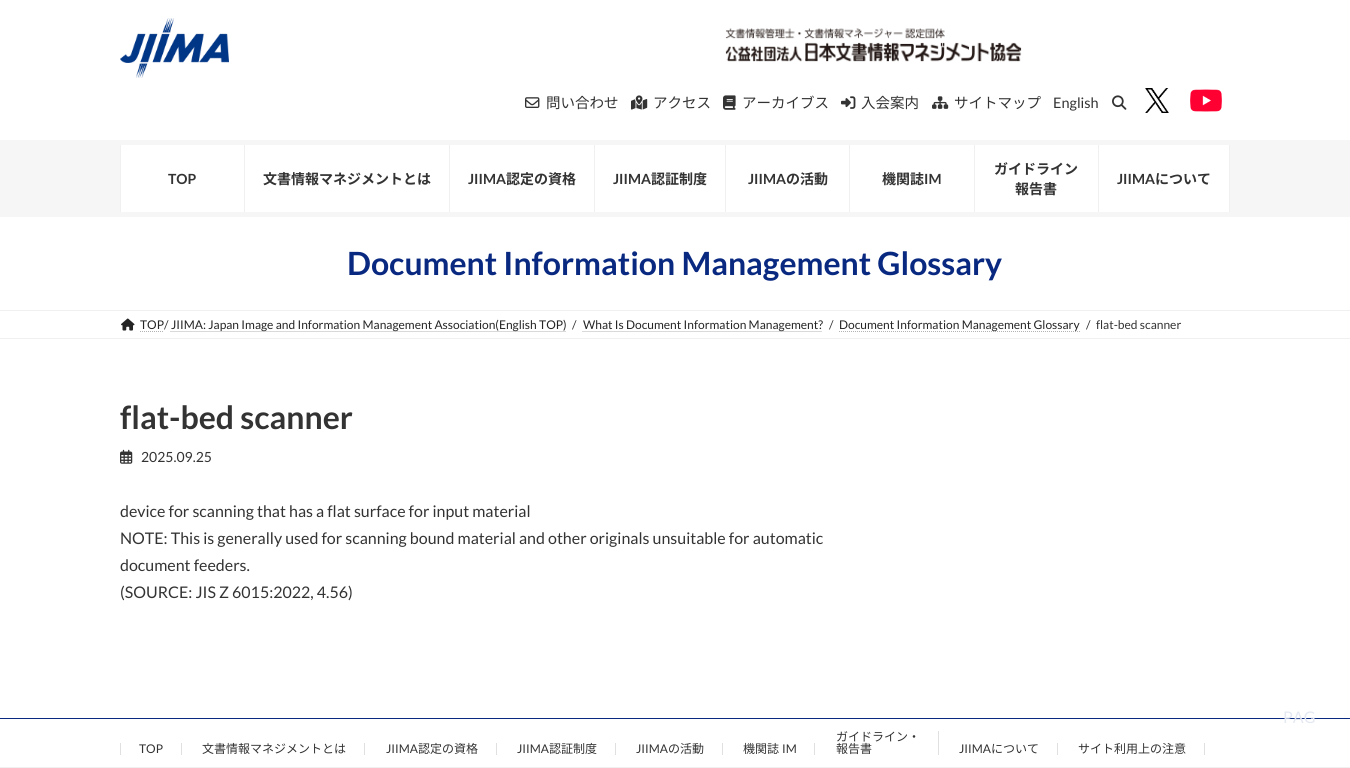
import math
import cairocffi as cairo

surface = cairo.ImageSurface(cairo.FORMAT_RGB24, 1350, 768)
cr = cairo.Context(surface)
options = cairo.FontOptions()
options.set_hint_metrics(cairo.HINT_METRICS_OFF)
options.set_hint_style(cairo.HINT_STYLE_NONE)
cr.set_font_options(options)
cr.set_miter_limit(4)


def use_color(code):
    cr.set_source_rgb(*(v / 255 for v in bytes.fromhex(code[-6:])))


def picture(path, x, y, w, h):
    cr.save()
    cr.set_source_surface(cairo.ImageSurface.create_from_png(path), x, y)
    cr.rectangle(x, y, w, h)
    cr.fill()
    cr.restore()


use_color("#ffffff")
cr.paint()
picture("img1.png", 120, 18, 109, 60)
picture("img2.png", 725, 28, 297, 34)
picture("img3.png", 525, 97, 15, 11)
cr.select_font_face("Noto Sans JP")
cr.set_font_size(14.5)
use_color("#333333")
cr.move_to(546, 108)
cr.show_text("問い合わせ")
picture("img4.png", 631, 95, 17, 15)
cr.move_to(653, 108)
cr.show_text("アクセス")
picture("img5.png", 723, 95, 13, 15)
cr.move_to(742, 108)
cr.show_text("アーカイブス")
picture("img6.png", 841, 96, 15, 13)
cr.move_to(861, 108)
cr.show_text("入会案内")
picture("img7.png", 932, 96, 17, 13)
cr.move_to(954, 108)
cr.show_text("サイトマップ")
cr.select_font_face("Lato")
cr.move_to(1053, 108)
cr.show_text("English")
picture("img8.png", 1112, 95, 15, 15)
picture("img9.png", 1145, 88, 24, 25)
picture("img10.png", 1190, 89, 32, 23)
use_color("#f6f6f6")
cr.rectangle(0, 140, 1350, 77)
cr.fill()
use_color("#ffffff")
cr.rectangle(121, 145, 1108, 67)
cr.fill()
use_color("#f0f0f0")
cr.rectangle(244, 145, 1, 67)
cr.fill()
cr.rectangle(120, 145, 1, 67)
cr.fill()
cr.select_font_face("Lato", cairo.FONT_SLANT_NORMAL, cairo.FONT_WEIGHT_BOLD)
cr.set_font_size(14)
use_color("#333333")
cr.move_to(168, 184)
cr.show_text("TOP")
use_color("#f0f0f0")
cr.rectangle(449, 145, 1, 67)
cr.fill()
cr.select_font_face("Noto Sans JP", cairo.FONT_SLANT_NORMAL, cairo.FONT_WEIGHT_BOLD)
use_color("#333333")
cr.move_to(263, 184)
cr.show_text("文書情報マネジメントとは")
use_color("#f0f0f0")
cr.rectangle(594, 145, 1, 67)
cr.fill()
cr.select_font_face("Lato", cairo.FONT_SLANT_NORMAL, cairo.FONT_WEIGHT_BOLD)
use_color("#333333")
cr.move_to(468, 184)
cr.show_text("JIIMA")
cr.select_font_face("Noto Sans JP", cairo.FONT_SLANT_NORMAL, cairo.FONT_WEIGHT_BOLD)
cr.move_to(506, 184)
cr.show_text("認定の資格")
use_color("#f0f0f0")
cr.rectangle(725, 145, 1, 67)
cr.fill()
cr.select_font_face("Lato", cairo.FONT_SLANT_NORMAL, cairo.FONT_WEIGHT_BOLD)
use_color("#333333")
cr.move_to(613, 184)
cr.show_text("JIIMA")
cr.select_font_face("Noto Sans JP", cairo.FONT_SLANT_NORMAL, cairo.FONT_WEIGHT_BOLD)
cr.move_to(651, 184)
cr.show_text("認証制度")
use_color("#f0f0f0")
cr.rectangle(849, 145, 1, 67)
cr.fill()
cr.select_font_face("Lato", cairo.FONT_SLANT_NORMAL, cairo.FONT_WEIGHT_BOLD)
use_color("#333333")
cr.move_to(748, 184)
cr.show_text("JIIMA")
cr.select_font_face("Noto Sans JP", cairo.FONT_SLANT_NORMAL, cairo.FONT_WEIGHT_BOLD)
cr.move_to(786, 184)
cr.show_text("の活動")
use_color("#f0f0f0")
cr.rectangle(974, 145, 1, 67)
cr.fill()
use_color("#333333")
cr.move_to(882, 184)
cr.show_text("機関誌")
cr.select_font_face("Lato", cairo.FONT_SLANT_NORMAL, cairo.FONT_WEIGHT_BOLD)
cr.move_to(924, 184)
cr.show_text("IM")
use_color("#f0f0f0")
cr.rectangle(1098, 145, 1, 67)
cr.fill()
cr.select_font_face("Noto Sans JP", cairo.FONT_SLANT_NORMAL, cairo.FONT_WEIGHT_BOLD)
use_color("#333333")
cr.move_to(994, 174)
cr.show_text("ガイドライン")
cr.move_to(1015, 194)
cr.show_text("報告書")
use_color("#f0f0f0")
cr.rectangle(1229, 145, 1, 67)
cr.fill()
cr.select_font_face("Lato", cairo.FONT_SLANT_NORMAL, cairo.FONT_WEIGHT_BOLD)
use_color("#333333")
cr.move_to(1117, 184)
cr.show_text("JIIMA")
cr.select_font_face("Noto Sans JP", cairo.FONT_SLANT_NORMAL, cairo.FONT_WEIGHT_BOLD)
cr.move_to(1155, 184)
cr.show_text("について")
cr.select_font_face("Lato", cairo.FONT_SLANT_NORMAL, cairo.FONT_WEIGHT_BOLD)
cr.set_font_size(32)
use_color("#092981")
cr.move_to(347, 275)
cr.show_text("Document Information Management Glossary")
use_color("#f0f0f0")
cr.rectangle(0, 310, 1350, 1)
cr.fill()
cr.rectangle(0, 338, 1350, 1)
cr.fill()
picture("img11.png", 121, 318, 14, 13)
cr.select_font_face("Lato")
cr.set_font_size(12)
use_color("#242424")
cr.move_to(140, 329)
cr.show_text("TOP")
cr.new_path()
cr.move_to(140, 331.5)
cr.line_to(164, 331.5)
use_color("#b3b3b3")
cr.set_line_width(1)
cr.set_dash([1, 1])
cr.stroke()
use_color("#333333")
cr.move_to(164, 329)
cr.show_text("/")
cr.new_path()
cr.move_to(170.5, 331.5)
cr.line_to(566, 331.5)
use_color("#b3b3b3")
cr.stroke()
use_color("#242424")
cr.move_to(171, 329)
cr.show_text("JIIMA: Japan Image and Information Management Association(English TOP)")
use_color("#333333")
cr.move_to(572, 329)
cr.show_text("/")
cr.new_path()
cr.move_to(582.5, 331.5)
cr.line_to(822.5, 331.5)
use_color("#b3b3b3")
cr.stroke()
use_color("#242424")
cr.move_to(583, 329)
cr.show_text("What Is Document Information Management?")
use_color("#333333")
cr.move_to(829, 329)
cr.show_text("/")
cr.new_path()
cr.move_to(839, 331.5)
cr.line_to(1080, 331.5)
use_color("#b3b3b3")
cr.stroke()
use_color("#242424")
cr.move_to(839, 329)
cr.show_text("Document Information Management Glossary")
use_color("#333333")
cr.move_to(1086, 329)
cr.show_text("/")
cr.move_to(1096, 329)
cr.show_text("flat-bed scanner")
cr.select_font_face("Lato", cairo.FONT_SLANT_NORMAL, cairo.FONT_WEIGHT_BOLD)
cr.set_font_size(32)
cr.move_to(120, 429)
cr.show_text("flat-bed scanner")
picture("img12.png", 120, 449, 13, 15)
cr.select_font_face("Lato")
cr.set_font_size(14)
cr.move_to(141, 462)
cr.show_text("2025.09.25")
cr.set_font_size(16)
cr.move_to(120, 517)
cr.show_text("device for scanning that has a flat surface for input material")
cr.move_to(120, 544)
cr.show_text("NOTE: This is generally used for scanning bound material and other originals unsuitable for automatic")
cr.move_to(120, 571)
cr.show_text("document feeders.")
cr.move_to(120, 598)
cr.show_text("(SOURCE: JIS Z 6015:2022, 4.56)")
use_color("#092981")
cr.rectangle(0, 718, 1350, 1)
cr.fill()
use_color("#e4e8f1")
cr.move_to(1283, 723)
cr.show_text("PAG")
use_color("#f0f0f0")
cr.rectangle(0, 767, 1350, 1)
cr.fill()
use_color("#e0e0e0")
cr.rectangle(181, 743, 1, 12)
cr.fill()
cr.rectangle(120, 743, 1, 12)
cr.fill()
cr.set_font_size(12)
use_color("#333333")
cr.move_to(139, 753)
cr.show_text("TOP")
use_color("#e0e0e0")
cr.rectangle(364, 743, 1, 12)
cr.fill()
cr.select_font_face("Noto Sans JP")
use_color("#333333")
cr.move_to(202, 753)
cr.show_text("文書情報マネジメントとは")
use_color("#e0e0e0")
cr.rectangle(496, 743, 1, 12)
cr.fill()
cr.select_font_face("Lato")
use_color("#333333")
cr.move_to(386, 753)
cr.show_text("JIIMA")
cr.select_font_face("Noto Sans JP")
cr.move_to(418, 753)
cr.show_text("認定の資格")
use_color("#e0e0e0")
cr.rectangle(615, 743, 1, 12)
cr.fill()
cr.select_font_face("Lato")
use_color("#333333")
cr.move_to(517, 753)
cr.show_text("JIIMA")
cr.select_font_face("Noto Sans JP")
cr.move_to(549, 753)
cr.show_text("認証制度")
use_color("#e0e0e0")
cr.rectangle(722, 743, 1, 12)
cr.fill()
cr.select_font_face("Lato")
use_color("#333333")
cr.move_to(636, 753)
cr.show_text("JIIMA")
cr.select_font_face("Noto Sans JP")
cr.move_to(668, 753)
cr.show_text("の活動")
use_color("#e0e0e0")
cr.rectangle(814, 743, 1, 12)
cr.fill()
use_color("#333333")
cr.move_to(743, 753)
cr.show_text("機関誌")
cr.select_font_face("Lato")
cr.move_to(782, 753)
cr.show_text("IM")
use_color("#e0e0e0")
cr.rectangle(938, 731, 1, 24)
cr.fill()
cr.select_font_face("Noto Sans JP")
use_color("#333333")
cr.move_to(836, 741)
cr.show_text("ガイドライン・")
cr.move_to(836, 753)
cr.show_text("報告書")
use_color("#e0e0e0")
cr.rectangle(1057, 743, 1, 12)
cr.fill()
cr.select_font_face("Lato")
use_color("#333333")
cr.move_to(959, 753)
cr.show_text("JIIMA")
cr.select_font_face("Noto Sans JP")
cr.move_to(991, 753)
cr.show_text("について")
use_color("#e0e0e0")
cr.rectangle(1204, 743, 1, 12)
cr.fill()
use_color("#333333")
cr.move_to(1078, 753)
cr.show_text("サイト利用上の注意")
surface.write_to_png("result.png")
